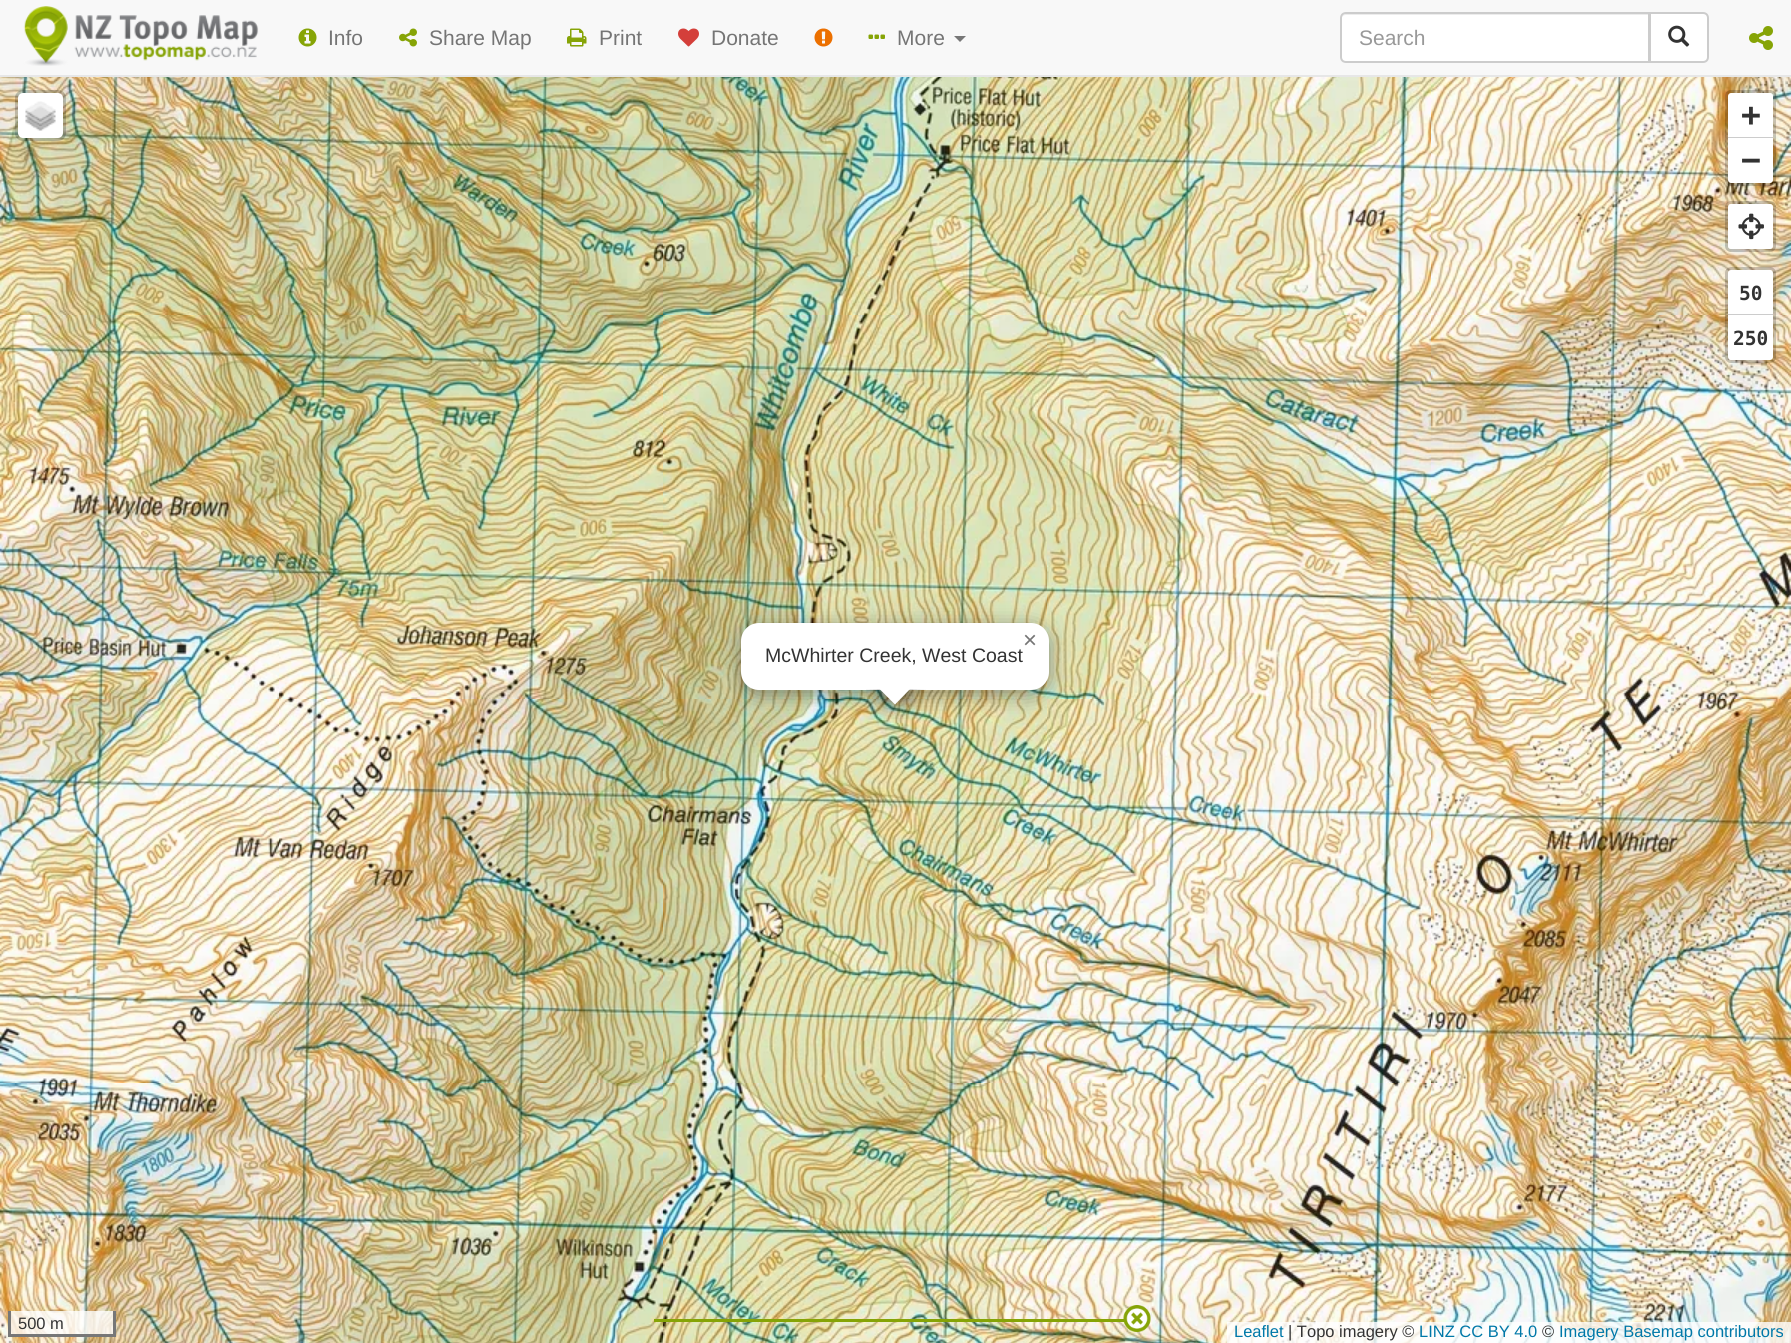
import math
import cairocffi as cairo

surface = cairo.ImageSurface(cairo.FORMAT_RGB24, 1791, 1343)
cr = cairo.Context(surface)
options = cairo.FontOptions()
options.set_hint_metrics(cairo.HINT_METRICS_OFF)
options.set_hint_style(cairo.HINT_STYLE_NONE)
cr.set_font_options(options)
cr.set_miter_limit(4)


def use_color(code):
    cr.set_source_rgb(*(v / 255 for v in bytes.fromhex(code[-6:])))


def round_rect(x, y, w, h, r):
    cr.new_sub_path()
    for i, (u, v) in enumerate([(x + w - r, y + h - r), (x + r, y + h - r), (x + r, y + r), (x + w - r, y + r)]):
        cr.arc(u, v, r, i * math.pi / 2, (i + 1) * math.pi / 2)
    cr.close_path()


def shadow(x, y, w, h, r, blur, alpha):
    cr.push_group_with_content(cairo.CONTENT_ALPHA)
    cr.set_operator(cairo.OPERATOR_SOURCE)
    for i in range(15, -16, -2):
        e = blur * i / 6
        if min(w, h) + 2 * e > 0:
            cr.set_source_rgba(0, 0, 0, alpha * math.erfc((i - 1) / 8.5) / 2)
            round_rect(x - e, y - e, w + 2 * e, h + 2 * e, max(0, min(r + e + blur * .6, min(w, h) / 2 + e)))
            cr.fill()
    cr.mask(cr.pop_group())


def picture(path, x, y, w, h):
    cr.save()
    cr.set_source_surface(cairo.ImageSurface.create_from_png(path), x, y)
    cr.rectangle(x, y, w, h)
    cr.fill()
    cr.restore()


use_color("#ffffff")
cr.paint()
use_color("#f8f8f8")
cr.rectangle(0, 0, 1791, 75)
cr.fill()
use_color("#e7e7e7")
cr.rectangle(0, 75, 1791, 2)
cr.fill()
picture("img1.png", 23, 6, 236, 60)
picture("img2.png", 298, 28, 19, 19)
cr.select_font_face("Liberation Sans")
cr.set_font_size(21)
use_color("#757575")
cr.move_to(328, 45)
cr.show_text("Info")
picture("img3.png", 399, 28, 18, 19)
cr.move_to(429, 45)
cr.show_text("Share Map")
picture("img4.png", 567, 28, 20, 19)
cr.move_to(599, 45)
cr.show_text("Print")
picture("img5.png", 678, 28, 21, 19)
cr.move_to(711, 45)
cr.show_text("Donate")
picture("img6.png", 814, 28, 19, 19)
picture("img7.png", 868, 34, 17, 5)
cr.move_to(897, 45)
cr.show_text("More")
use_color("#777777")
cr.new_path()
cr.move_to(954, 36)
cr.line_to(966, 36)
cr.line_to(960, 42)
cr.close_path()
cr.fill()
use_color("#ffffff")
cr.new_path()
cr.move_to(1346, 12)
cr.line_to(1650, 12)
cr.line_to(1650, 63)
cr.line_to(1346, 63)
cr.curve_to(1342.5, 63, 1340, 60.5, 1340, 57)
cr.line_to(1340, 18)
cr.curve_to(1340, 14.5, 1342.5, 12, 1346, 12)
cr.close_path()
cr.fill()
use_color("#ececec")
cr.new_path()
cr.move_to(1346, 15)
cr.line_to(1648, 15)
cr.line_to(1648, 62)
cr.line_to(1649, 62)
cr.line_to(1649, 14)
cr.line_to(1346, 14)
cr.curve_to(1343, 14, 1341, 17, 1341, 20)
cr.curve_to(1341, 17, 1343, 15, 1346, 15)
cr.close_path()
cr.fill()
cr.new_path()
cr.move_to(1346, 13)
cr.line_to(1649, 13)
cr.line_to(1649, 62)
cr.line_to(1346, 62)
cr.curve_to(1343, 62, 1341, 60, 1341, 57)
cr.line_to(1341, 18)
cr.curve_to(1341, 15, 1343, 13, 1346, 13)
cr.close_path()
use_color("#cccccc")
cr.stroke()
use_color("#999999")
cr.move_to(1359, 45)
cr.show_text("Search")
use_color("#ffffff")
cr.new_path()
cr.move_to(1650, 13)
cr.line_to(1703, 13)
cr.curve_to(1706, 13, 1708, 15, 1708, 18)
cr.line_to(1708, 57)
cr.curve_to(1708, 60, 1706, 62, 1703, 62)
cr.line_to(1650, 62)
cr.close_path()
cr.fill_preserve()
use_color("#cccccc")
cr.stroke()
picture("img8.png", 1668, 25, 22, 22)
picture("img9.png", 1749, 26, 24, 24)
picture("img13.png", 0, 77, 279, 238)
use_color("#ffffff")
round_rect(18, 93, 45, 45, 5)
cr.fill()
round_rect(16.5, 91.5, 48, 48, 6.5)
cr.set_source_rgba(0, 0, 0, 0.2)
cr.set_line_width(3)
cr.stroke()
picture("img10.png", 25, 101, 31, 30)
picture("img17.png", 1431, 77, 360, 238)
round_rect(1726.5, 91.5, 48, 93, 4.5)
cr.stroke()
use_color("#ffffff")
cr.new_path()
cr.move_to(1731, 93)
cr.line_to(1770, 93)
cr.curve_to(1771.5, 93, 1773, 94.5, 1773, 96)
cr.line_to(1773, 138)
cr.line_to(1728, 138)
cr.line_to(1728, 96)
cr.curve_to(1728, 94.5, 1729.5, 93, 1731, 93)
cr.close_path()
cr.fill()
use_color("#cccccc")
cr.rectangle(1728, 137, 45, 1)
cr.fill()
cr.select_font_face("DejaVu Sans Mono", cairo.FONT_SLANT_NORMAL, cairo.FONT_WEIGHT_BOLD)
cr.set_font_size(33)
use_color("#333333")
cr.move_to(1741, 126)
cr.show_text("+")
use_color("#ffffff")
cr.new_path()
cr.move_to(1728, 138)
cr.line_to(1773, 138)
cr.line_to(1773, 180)
cr.curve_to(1773, 181.5, 1771.5, 183, 1770, 183)
cr.line_to(1731, 183)
cr.curve_to(1729.5, 183, 1728, 181.5, 1728, 180)
cr.close_path()
cr.fill()
use_color("#333333")
cr.move_to(1741, 171)
cr.show_text("−")
round_rect(1726.5, 202.5, 48, 48, 4.5)
cr.set_source_rgba(0, 0, 0, 0.2)
cr.stroke()
use_color("#ffffff")
round_rect(1728, 204, 45, 45, 3)
cr.fill()
picture("img11.png", 1738, 213, 26, 27)
picture("img22.png", 1431, 315, 360, 384)
round_rect(1726.5, 268.5, 48, 93, 4.5)
cr.set_source_rgba(0, 0, 0, 0.2)
cr.stroke()
use_color("#ffffff")
cr.new_path()
cr.move_to(1731, 270)
cr.line_to(1770, 270)
cr.curve_to(1771.5, 270, 1773, 271.5, 1773, 273)
cr.line_to(1773, 315)
cr.line_to(1728, 315)
cr.line_to(1728, 273)
cr.curve_to(1728, 271.5, 1729.5, 270, 1731, 270)
cr.close_path()
cr.fill()
use_color("#cccccc")
cr.rectangle(1728, 314, 45, 1)
cr.fill()
cr.set_font_size(19.5)
use_color("#333333")
cr.move_to(1739, 300)
cr.show_text("50")
use_color("#ffffff")
cr.new_path()
cr.move_to(1728, 315)
cr.line_to(1773, 315)
cr.line_to(1773, 357)
cr.curve_to(1773, 358.5, 1771.5, 360, 1770, 360)
cr.line_to(1731, 360)
cr.curve_to(1729.5, 360, 1728, 358.5, 1728, 357)
cr.close_path()
cr.fill()
use_color("#333333")
cr.move_to(1733, 345)
cr.show_text("250")
picture("img28.png", 0, 1083, 279, 260)
cr.set_source_rgba(1, 1, 1, 0.8)
cr.rectangle(11, 1311, 102, 23)
cr.fill()
use_color("#777777")
cr.rectangle(113, 1311, 3, 26)
cr.fill()
cr.rectangle(8, 1334, 108, 3)
cr.fill()
cr.rectangle(8, 1311, 3, 26)
cr.fill()
cr.select_font_face("Liberation Sans")
cr.set_font_size(16.5)
use_color("#333333")
cr.move_to(18, 1329)
cr.show_text("500 m")
picture("img29.png", 279, 1083, 384, 260)
picture("img30.png", 663, 1083, 384, 260)
picture("img31.png", 1047, 1083, 384, 260)
use_color("#86a406")
cr.rectangle(654, 1319, 471, 3)
cr.fill()
picture("img12.png", 1123, 1305, 28, 27)
picture("img32.png", 1431, 1083, 360, 260)
cr.set_source_rgba(1, 1, 1, 0.8)
cr.rectangle(1227, 1322, 564, 21)
cr.fill()
use_color("#0078a8")
cr.move_to(1234, 1337)
cr.show_text("Leaflet")
use_color("#333333")
cr.move_to(1288, 1337)
cr.show_text("| Topo imagery ©")
use_color("#0078a8")
cr.move_to(1419, 1337)
cr.show_text("LINZ CC BY 4.0")
use_color("#333333")
cr.move_to(1542, 1337)
cr.show_text("©")
use_color("#0078a8")
cr.move_to(1559, 1337)
cr.show_text("Imagery Basemap contributors")
picture("img14.png", 279, 77, 384, 238)
picture("img15.png", 663, 77, 384, 238)
picture("img16.png", 1047, 77, 384, 238)
picture("img18.png", 0, 315, 279, 384)
picture("img19.png", 279, 315, 384, 384)
picture("img20.png", 663, 315, 384, 384)
picture("img21.png", 1047, 315, 384, 384)
picture("img23.png", 0, 699, 279, 384)
picture("img24.png", 279, 699, 384, 384)
picture("img25.png", 663, 699, 384, 384)
picture("img26.png", 1047, 699, 384, 384)
picture("img27.png", 1431, 699, 360, 384)
use_color("#000000")
shadow(741, 627, 308, 68, 18, 10.5, 0.4)
use_color("#ffffff")
round_rect(741, 623, 308, 67, 18)
cr.fill()
cr.set_font_size(24)
use_color("#757575")
cr.move_to(1023, 648)
cr.show_text("×")
cr.save()
cr.rectangle(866, 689, 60, 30)
cr.clip()
use_color("#000000")
shadow(882, 678, 26, 26, 0, 10.5, 0.4)
cr.restore()
cr.save()
cr.rectangle(866, 689, 60, 30)
cr.clip()
use_color("#ffffff")
cr.new_path()
cr.move_to(895, 668)
cr.line_to(913, 686)
cr.line_to(895, 704.5)
cr.line_to(876.5, 686)
cr.close_path()
cr.fill()
cr.restore()
cr.set_font_size(19.5)
use_color("#333333")
cr.move_to(765, 662)
cr.show_text("McWhirter Creek, West Coast")
surface.write_to_png("result.png")
